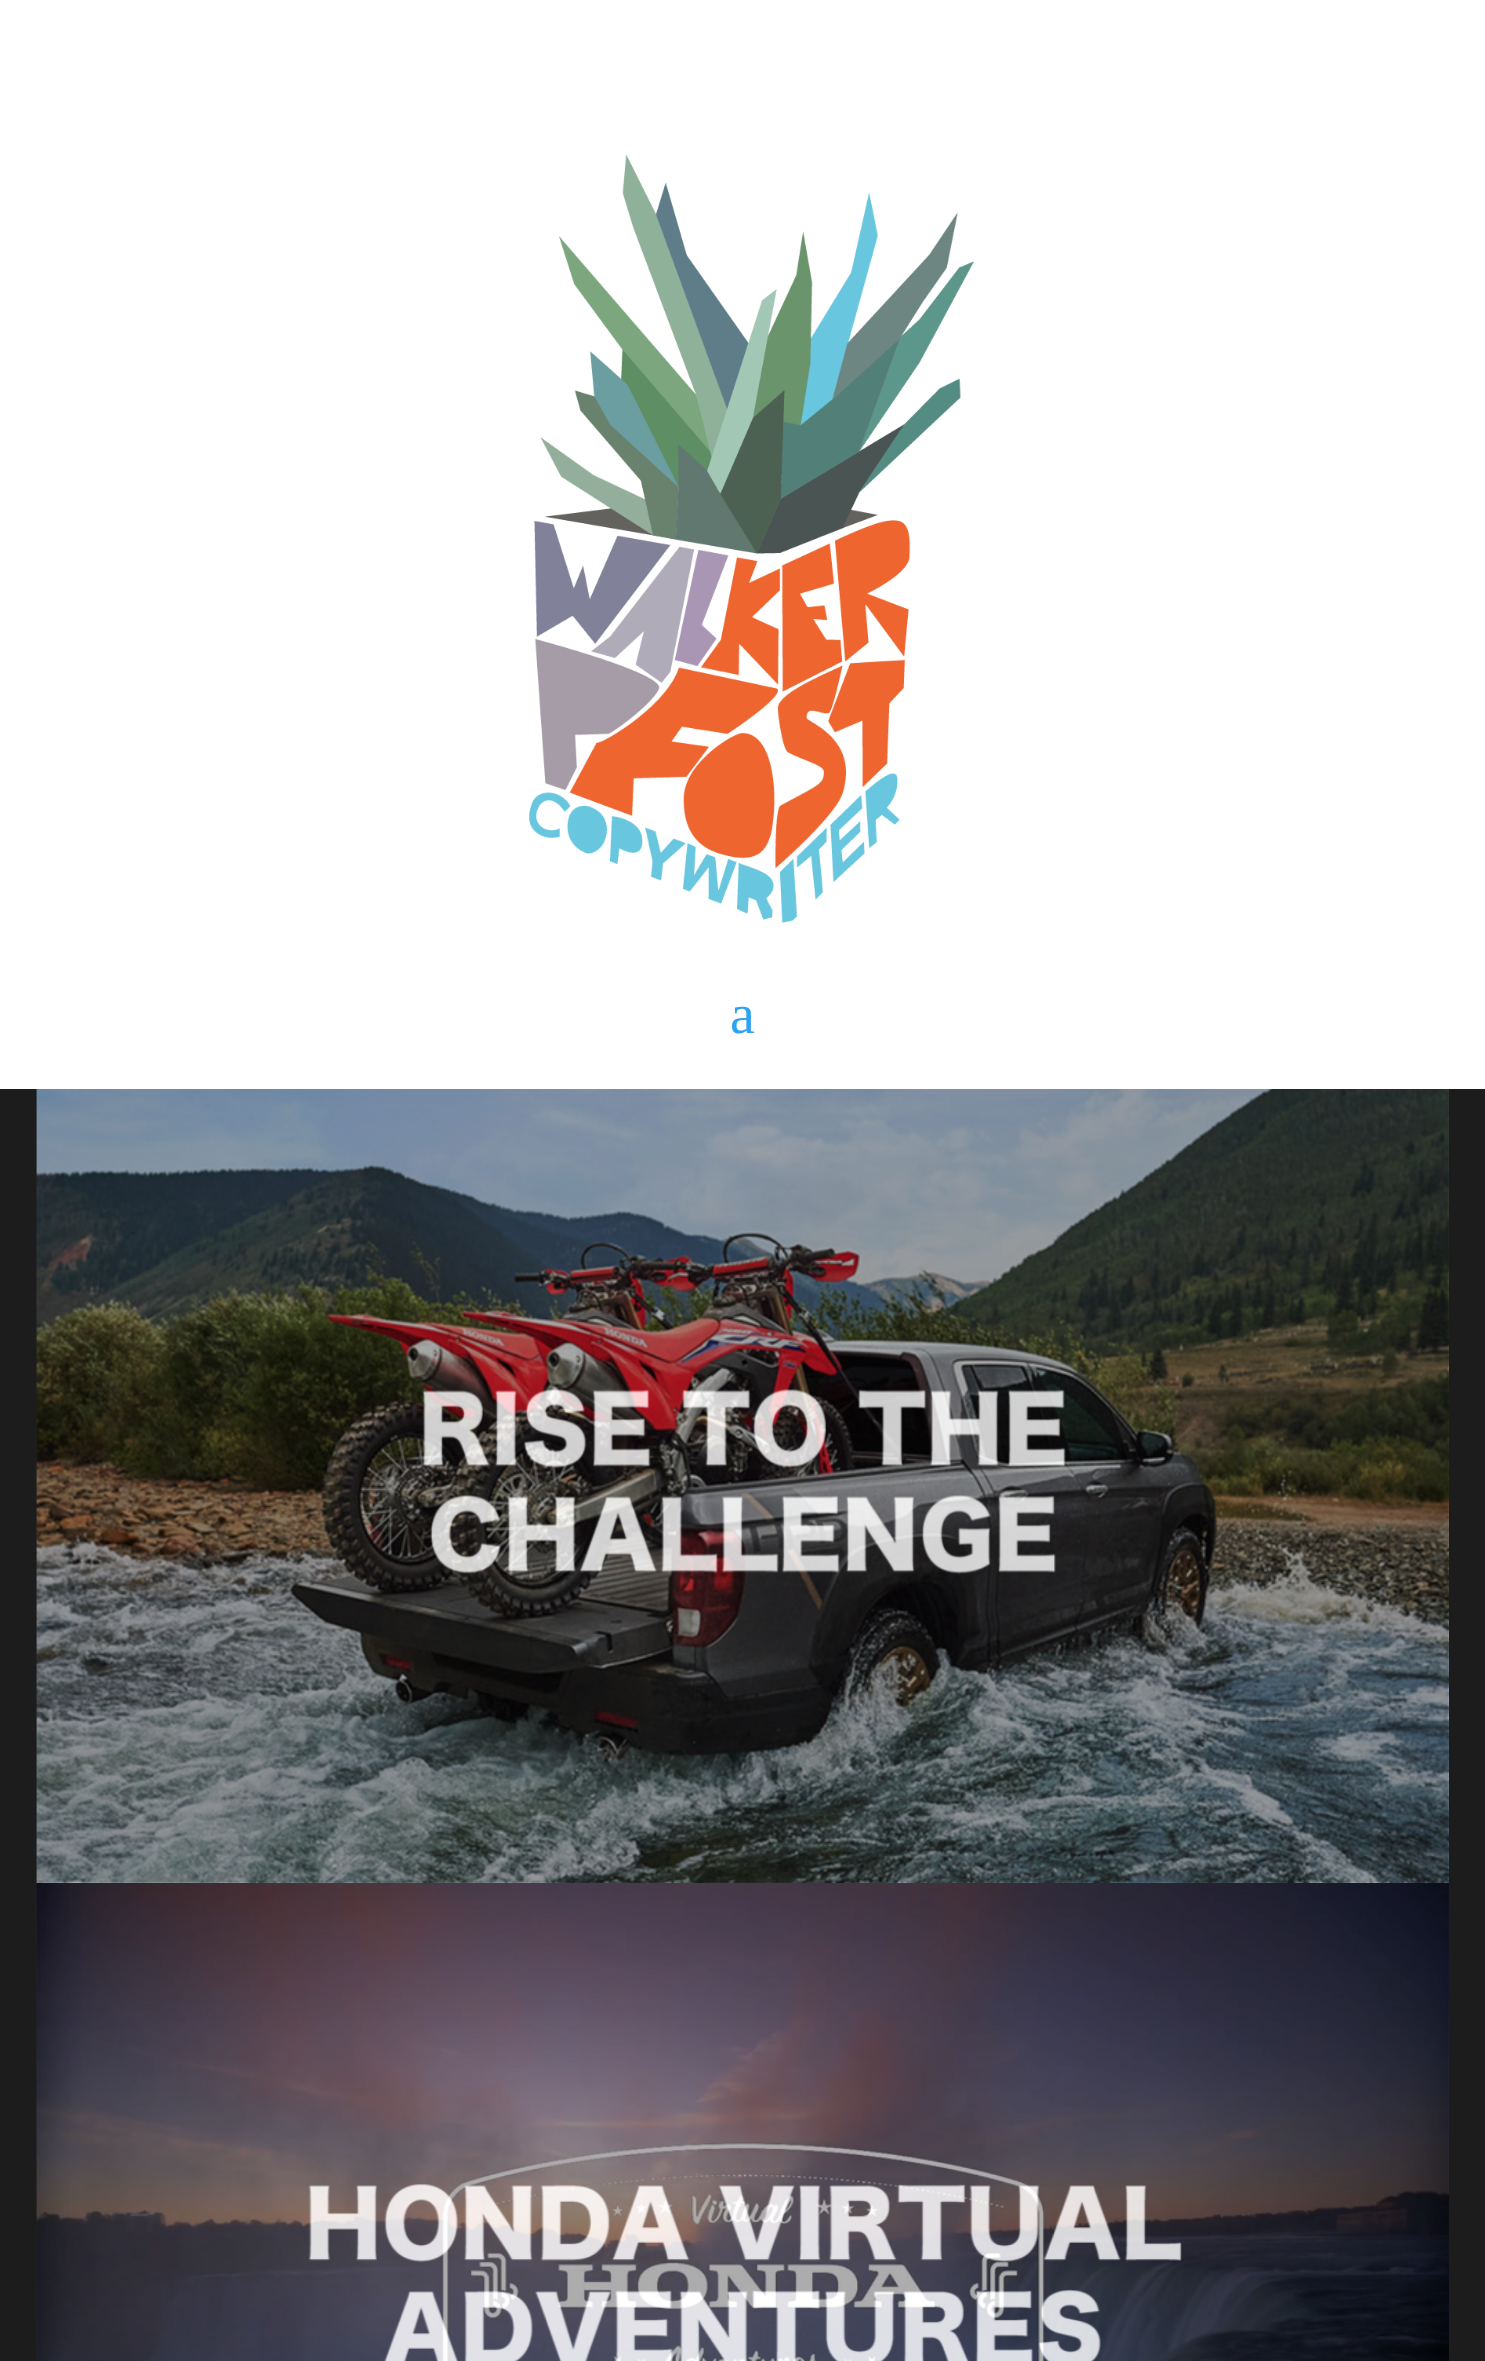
import math
import cairocffi as cairo

surface = cairo.ImageSurface(cairo.FORMAT_RGB24, 1485, 2361)
cr = cairo.Context(surface)
options = cairo.FontOptions()
options.set_hint_metrics(cairo.HINT_METRICS_OFF)
options.set_hint_style(cairo.HINT_STYLE_NONE)
cr.set_font_options(options)
cr.set_miter_limit(4)


def use_color(code):
    cr.set_source_rgb(*(v / 255 for v in bytes.fromhex(code[-6:])))


def picture(path, x, y, w, h):
    cr.save()
    cr.set_source_surface(cairo.ImageSurface.create_from_png(path), x, y)
    cr.rectangle(x, y, w, h)
    cr.fill()
    cr.restore()


use_color("#1c1c1c")
cr.paint()
use_color("#ffffff")
cr.rectangle(0, 0, 1485, 1089)
cr.fill()
picture("img1.png", 529, 154, 445, 769)
cr.select_font_face("Liberation Serif")
cr.set_font_size(56)
use_color("#2ea3f2")
cr.move_to(730, 1033)
cr.show_text("a")
picture("img2.png", 36, 1089, 1413, 794)
picture("img3.png", 37, 1089, 1412, 794)
picture("img4.png", 36, 1883, 1413, 478)
picture("img5.png", 37, 1883, 1412, 478)
surface.write_to_png("result.png")
